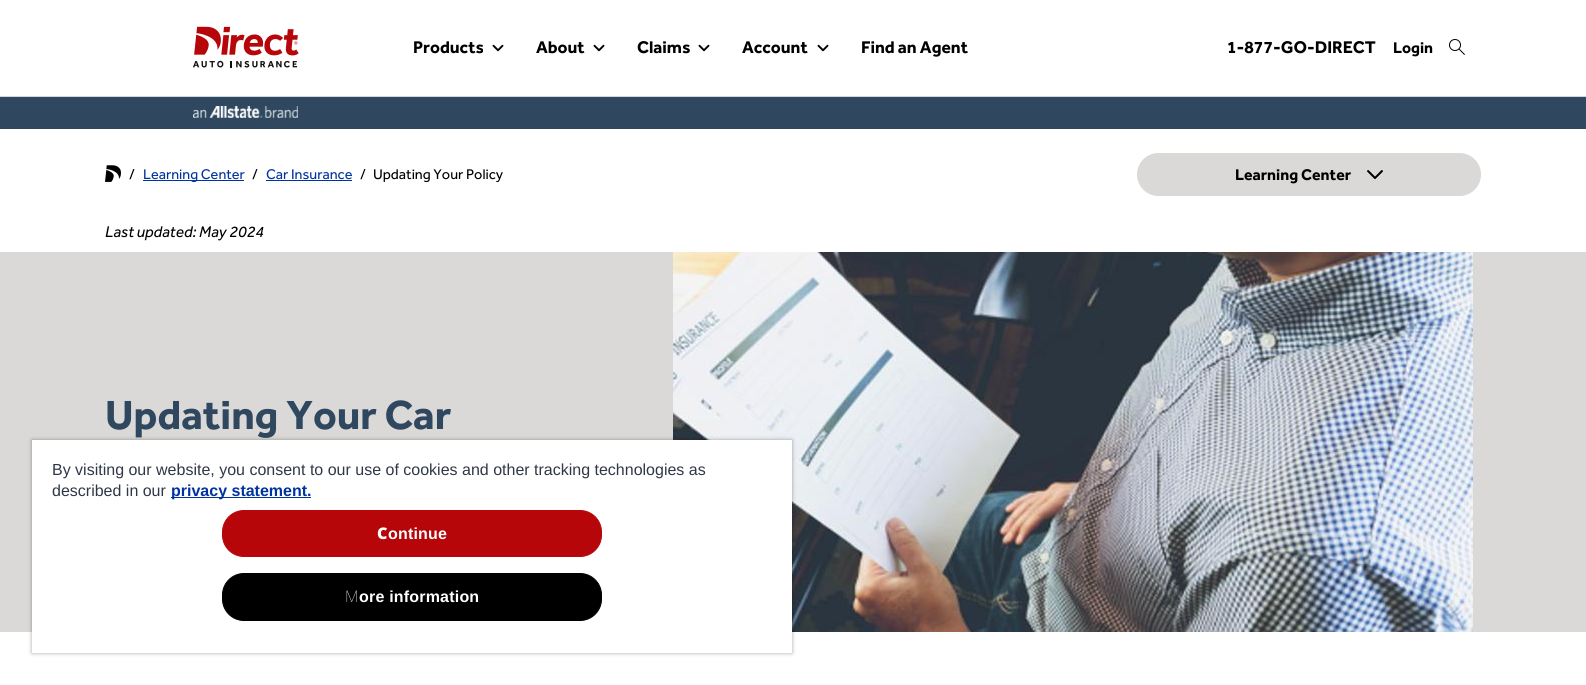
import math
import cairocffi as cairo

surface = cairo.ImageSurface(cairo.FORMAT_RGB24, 1586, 685)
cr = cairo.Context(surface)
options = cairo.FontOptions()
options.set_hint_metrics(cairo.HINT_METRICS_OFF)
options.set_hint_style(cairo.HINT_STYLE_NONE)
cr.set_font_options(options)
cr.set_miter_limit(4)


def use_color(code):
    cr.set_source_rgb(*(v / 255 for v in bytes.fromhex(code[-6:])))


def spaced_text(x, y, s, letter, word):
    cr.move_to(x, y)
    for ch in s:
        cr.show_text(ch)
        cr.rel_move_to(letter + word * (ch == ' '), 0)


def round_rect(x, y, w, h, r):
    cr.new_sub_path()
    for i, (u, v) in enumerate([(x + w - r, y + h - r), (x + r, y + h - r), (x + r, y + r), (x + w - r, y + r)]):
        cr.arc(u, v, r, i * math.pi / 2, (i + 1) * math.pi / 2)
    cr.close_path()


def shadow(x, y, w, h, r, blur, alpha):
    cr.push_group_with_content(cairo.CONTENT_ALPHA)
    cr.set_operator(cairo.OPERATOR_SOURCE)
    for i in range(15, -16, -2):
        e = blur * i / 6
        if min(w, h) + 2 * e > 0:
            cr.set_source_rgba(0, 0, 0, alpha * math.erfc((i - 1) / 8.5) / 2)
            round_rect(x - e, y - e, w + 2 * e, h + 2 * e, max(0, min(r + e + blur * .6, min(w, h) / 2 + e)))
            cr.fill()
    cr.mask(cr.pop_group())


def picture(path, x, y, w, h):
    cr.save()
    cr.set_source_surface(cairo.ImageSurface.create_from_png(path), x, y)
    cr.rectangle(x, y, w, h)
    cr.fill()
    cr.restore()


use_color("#ffffff")
cr.paint()
use_color("#ced7e0")
cr.rectangle(0, 96, 1586, 1)
cr.fill()
picture("img1.png", 193, 26, 106, 42)
cr.select_font_face("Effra", cairo.FONT_SLANT_NORMAL, cairo.FONT_WEIGHT_BOLD)
cr.set_font_size(17.5)
use_color("#000000")
cr.move_to(413, 53)
cr.show_text("Products")
picture("img2.png", 492, 44, 12, 8)
cr.move_to(536, 53)
cr.show_text("About")
picture("img2.png", 593, 44, 12, 8)
cr.move_to(637, 53)
cr.show_text("Claims")
picture("img2.png", 698, 44, 12, 8)
cr.move_to(742, 53)
cr.show_text("Account")
picture("img2.png", 817, 44, 12, 8)
cr.move_to(861, 53)
cr.show_text("Find an Agent")
cr.move_to(1227, 53)
cr.show_text("1-877-GO-DIRECT")
cr.set_font_size(16)
cr.move_to(1393, 53)
cr.show_text("Login")
picture("img3.png", 1449, 39, 16, 16)
use_color("#2f485f")
cr.rectangle(0, 97, 1586, 32)
cr.fill()
picture("img4.png", 193, 106, 105, 12)
picture("img5.png", 105, 165, 16, 17)
cr.select_font_face("Effra")
cr.set_font_size(14.5)
use_color("#000000")
cr.move_to(129, 179)
cr.show_text("/")
use_color("#0033a0")
cr.rectangle(143, 180, 101, 1)
cr.fill()
cr.move_to(143, 179)
cr.show_text("Learning Center")
use_color("#000000")
cr.move_to(252, 179)
cr.show_text("/")
use_color("#0033a0")
cr.move_to(266, 179)
cr.show_text("Car Insurance")
cr.rectangle(266, 180, 86, 1)
cr.fill()
use_color("#000000")
cr.move_to(360, 179)
cr.show_text("/")
cr.move_to(373, 179)
cr.show_text("Updating Your Policy")
use_color("#dad9d7")
round_rect(1138, 154, 342, 41, 20.5)
cr.fill_preserve()
cr.stroke()
cr.select_font_face("Effra", cairo.FONT_SLANT_NORMAL, cairo.FONT_WEIGHT_BOLD)
cr.set_font_size(16)
use_color("#000000")
cr.move_to(1235, 180)
cr.show_text("Learning Center")
picture("img6.png", 1367, 170, 16, 9)
cr.select_font_face("Effra", cairo.FONT_SLANT_ITALIC)
cr.move_to(105, 237)
cr.show_text("Last updated: May 2024")
use_color("#dad9d7")
cr.rectangle(0, 252, 1586, 380)
cr.fill()
cr.select_font_face("Effra", cairo.FONT_SLANT_NORMAL, cairo.FONT_WEIGHT_BOLD)
cr.set_font_size(42)
use_color("#2f485f")
cr.move_to(105, 429)
cr.show_text("Updating Your Car")
picture("img7.png", 673, 252, 800, 380)
use_color("#000000")
shadow(32, 440, 760, 213, 0, 2, 0.35)
use_color("#ffffff")
cr.rectangle(32, 440, 760, 213)
cr.fill()
cr.select_font_face("Liberation Sans")
cr.set_font_size(16)
use_color("#2f3847")
cr.move_to(52, 475)
cr.show_text("By visiting our website, you consent to our use of cookies and other tracking technologies as")
cr.move_to(52, 496)
cr.show_text("described in our")
use_color("#0033a0")
cr.rectangle(171, 497, 140, 1)
cr.fill()
cr.select_font_face("Liberation Sans", cairo.FONT_SLANT_NORMAL, cairo.FONT_WEIGHT_BOLD)
cr.move_to(171, 496)
cr.show_text("privacy statement.")
use_color("#b7060a")
round_rect(222.5, 510.5, 379, 46, 21.5)
cr.fill_preserve()
cr.set_line_width(1)
cr.stroke()
cr.select_font_face("Noto Sans Black")
use_color("#ffffff")
spaced_text(377, 539, "C", 0.2, 0)
cr.select_font_face("Liberation Sans", cairo.FONT_SLANT_NORMAL, cairo.FONT_WEIGHT_BOLD)
spaced_text(388, 539, "ontinue", 0.2, 0)
use_color("#000000")
round_rect(222.5, 573.5, 379, 47, 21.5)
cr.fill_preserve()
cr.stroke()
cr.select_font_face("Noto Sans Thin")
use_color("#ffffff")
spaced_text(345, 602, "M", 0.2, 0)
cr.select_font_face("Liberation Sans", cairo.FONT_SLANT_NORMAL, cairo.FONT_WEIGHT_BOLD)
spaced_text(359, 602, "ore information", 0.2, 0)
surface.write_to_png("result.png")
